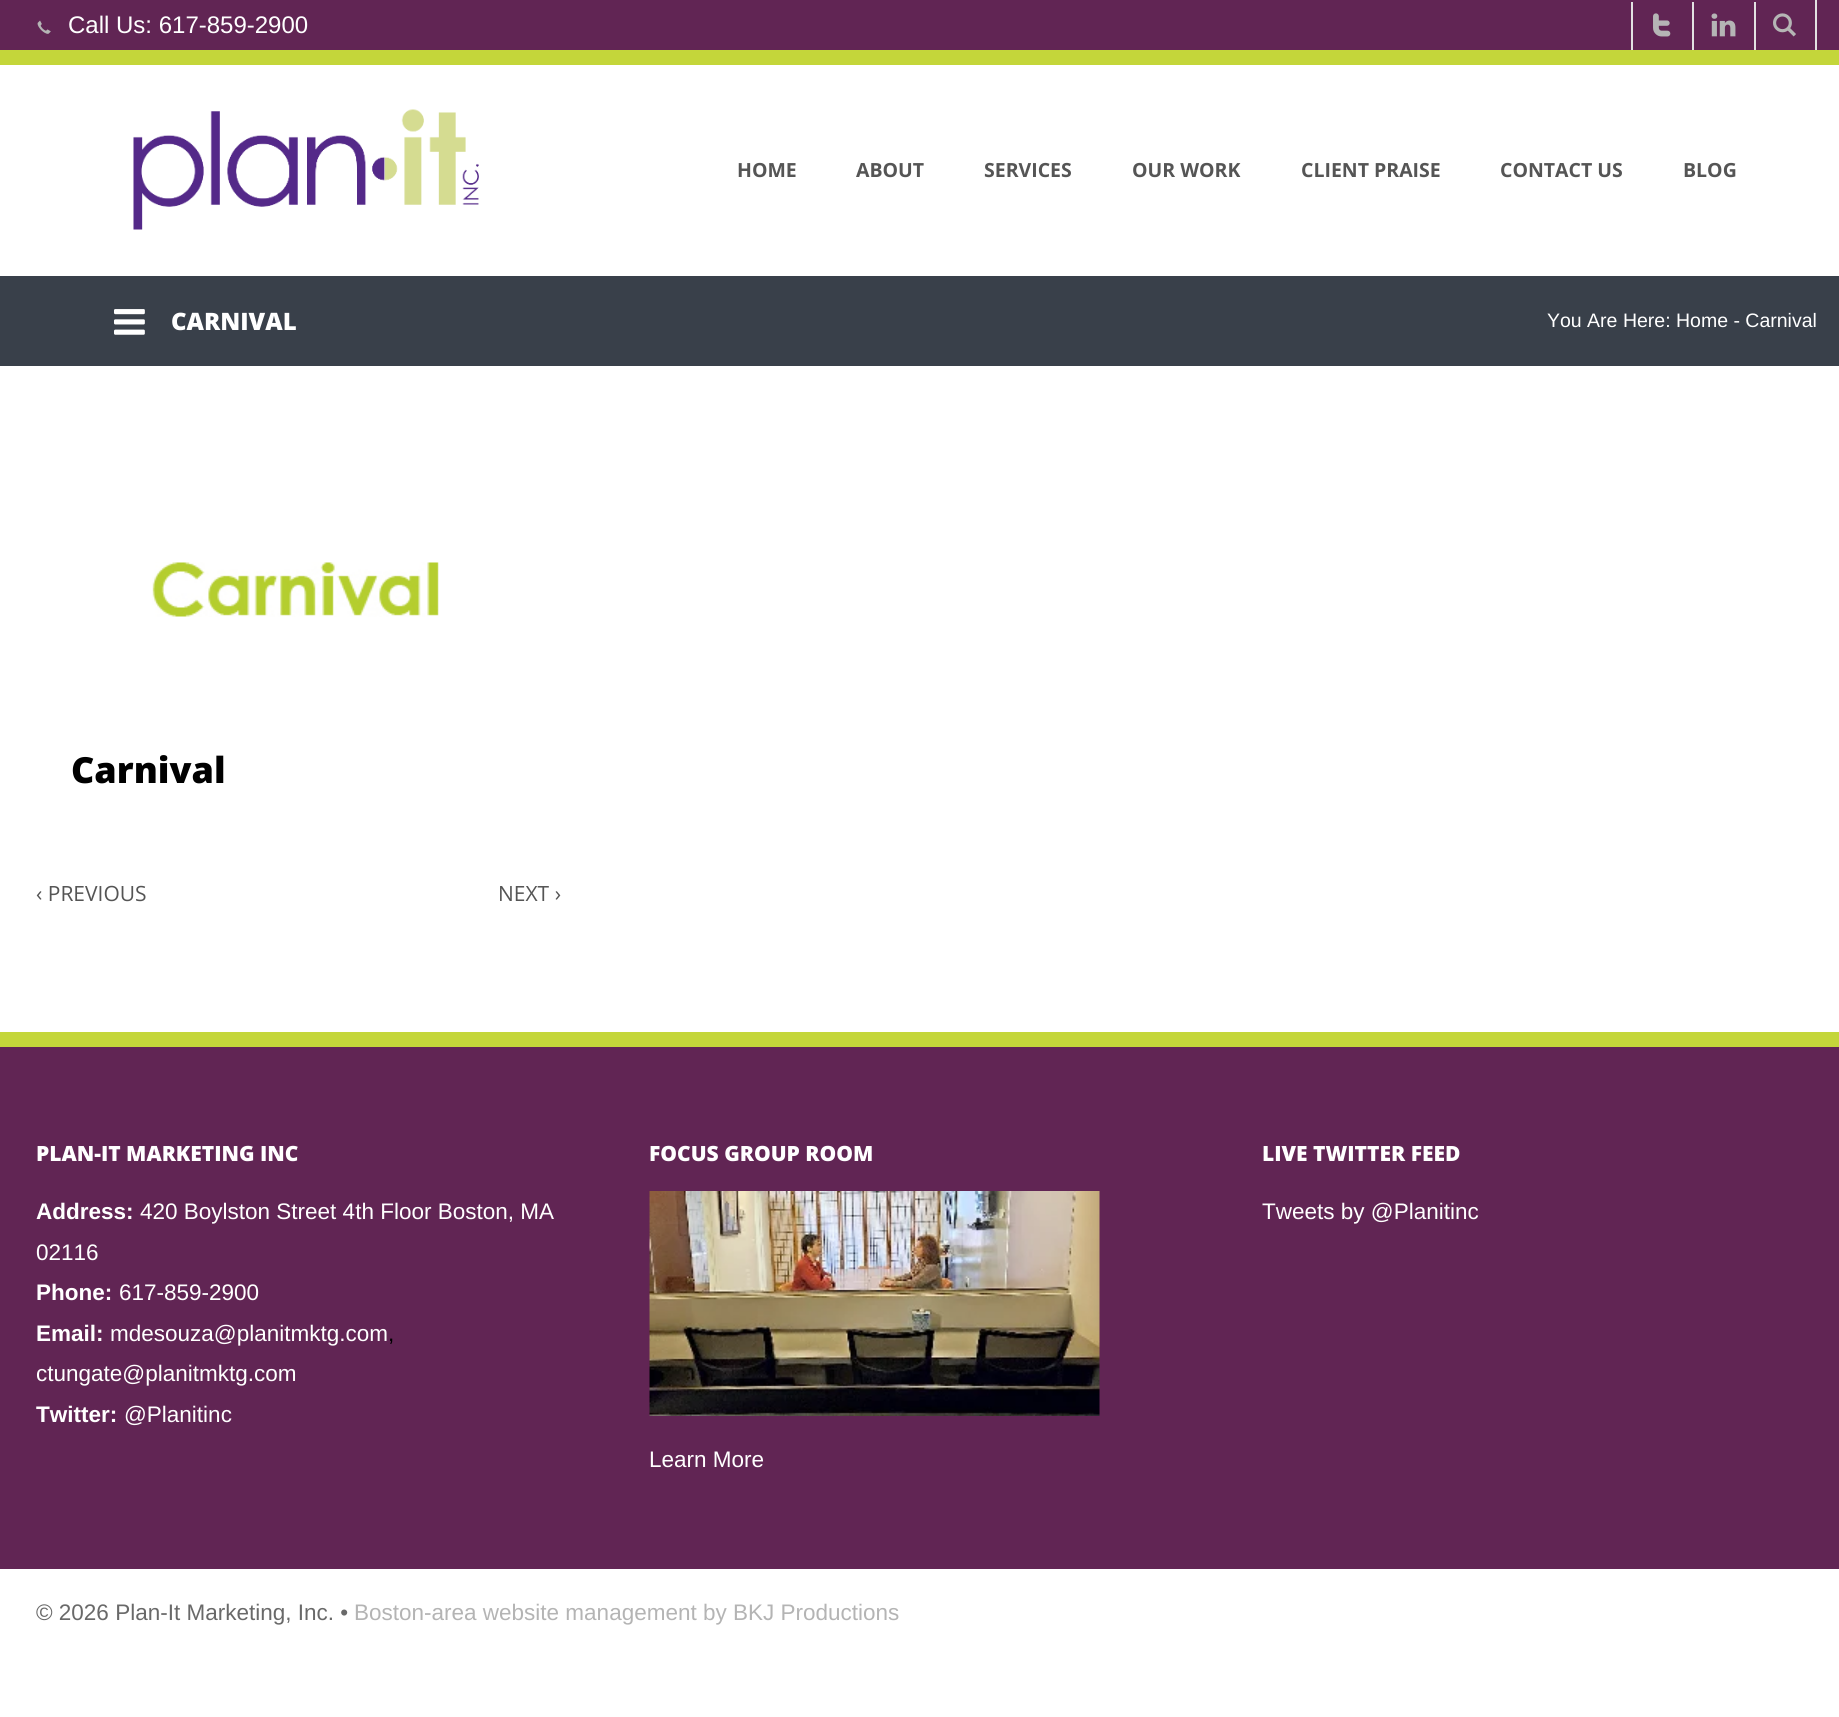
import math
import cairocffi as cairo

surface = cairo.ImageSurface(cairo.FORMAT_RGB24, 1839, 1717)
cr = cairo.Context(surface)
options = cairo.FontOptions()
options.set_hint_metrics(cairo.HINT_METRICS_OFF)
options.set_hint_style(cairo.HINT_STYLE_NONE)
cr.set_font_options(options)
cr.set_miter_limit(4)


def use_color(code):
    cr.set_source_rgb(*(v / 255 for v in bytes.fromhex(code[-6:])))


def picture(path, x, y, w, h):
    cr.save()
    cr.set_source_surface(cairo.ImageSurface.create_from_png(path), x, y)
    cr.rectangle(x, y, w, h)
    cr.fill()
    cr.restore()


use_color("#ffffff")
cr.paint()
use_color("#612554")
cr.rectangle(0, 0, 1839, 50)
cr.fill()
use_color("#c4d63a")
cr.rectangle(0, 50, 1839, 15)
cr.fill()
picture("img1.png", 37, 20, 14, 14)
cr.select_font_face("Liberation Sans")
cr.set_font_size(24)
use_color("#ffffff")
cr.move_to(68, 33)
cr.show_text("Call Us: 617-859-2900")
use_color("#e2e2e2")
cr.rectangle(1815, 0, 2, 50)
cr.fill()
cr.rectangle(1631, 2, 2, 48)
cr.fill()
picture("img2.png", 1653, 13, 18, 24)
cr.rectangle(1692, 2, 2, 48)
cr.fill()
picture("img3.png", 1711, 13, 25, 24)
cr.rectangle(1754, 2, 2, 48)
cr.fill()
picture("img4.png", 1773, 13, 23, 24)
picture("img5.png", 133, 109, 346, 121)
cr.select_font_face("Open Sans", cairo.FONT_SLANT_NORMAL, cairo.FONT_WEIGHT_BOLD)
cr.set_font_size(19.5)
use_color("#555555")
cr.move_to(737, 177)
cr.show_text("HOME")
cr.move_to(856, 177)
cr.show_text("ABOUT")
cr.move_to(984, 177)
cr.show_text("SERVICES")
cr.move_to(1132, 177)
cr.show_text("OUR WORK")
cr.move_to(1301, 177)
cr.show_text("CLIENT PRAISE")
cr.move_to(1500, 177)
cr.show_text("CONTACT US")
cr.move_to(1683, 177)
cr.show_text("BLOG")
use_color("#39404a")
cr.rectangle(0, 276, 1839, 90)
cr.fill()
picture("img6.png", 114, 309, 31, 26)
cr.select_font_face("Open Sans ExtraBold")
cr.set_font_size(24)
use_color("#ffffff")
cr.move_to(171, 330)
cr.show_text("CARNIVAL")
cr.select_font_face("Liberation Sans")
cr.set_font_size(19.5)
cr.move_to(1547, 327)
cr.show_text("You Are Here: Home - Carnival")
picture("img7.png", 152, 562, 287, 55)
cr.select_font_face("Open Sans ExtraBold")
cr.set_font_size(36)
use_color("#000000")
cr.move_to(71, 783)
cr.show_text("Carnival")
cr.select_font_face("Open Sans")
cr.set_font_size(21)
use_color("#555555")
cr.move_to(36, 901)
cr.show_text("‹ PREVIOUS")
cr.move_to(498, 901)
cr.show_text("NEXT ›")
use_color("#612554")
cr.rectangle(0, 1047, 1839, 522)
cr.fill()
use_color("#c4d63a")
cr.rectangle(0, 1032, 1839, 15)
cr.fill()
cr.select_font_face("Open Sans ExtraBold")
use_color("#ffffff")
cr.move_to(36, 1161)
cr.show_text("PLAN-IT MARKETING INC")
cr.select_font_face("Liberation Sans", cairo.FONT_SLANT_NORMAL, cairo.FONT_WEIGHT_BOLD)
cr.set_font_size(22.5)
cr.move_to(36, 1219)
cr.show_text("Address:")
cr.select_font_face("Liberation Sans")
cr.move_to(140, 1219)
cr.show_text("420 Boylston Street 4th Floor Boston, MA")
cr.move_to(36, 1260)
cr.show_text("02116")
cr.select_font_face("Liberation Sans", cairo.FONT_SLANT_NORMAL, cairo.FONT_WEIGHT_BOLD)
cr.move_to(36, 1300)
cr.show_text("Phone:")
cr.select_font_face("Liberation Sans")
cr.move_to(119, 1300)
cr.show_text("617-859-2900")
cr.select_font_face("Liberation Sans", cairo.FONT_SLANT_NORMAL, cairo.FONT_WEIGHT_BOLD)
cr.move_to(36, 1341)
cr.show_text("Email:")
cr.select_font_face("Liberation Sans")
cr.move_to(110, 1341)
cr.show_text("mdesouza@planitmktg.com")
use_color("#000000")
cr.move_to(388, 1341)
cr.show_text(",")
use_color("#ffffff")
cr.move_to(36, 1381)
cr.show_text("ctungate@planitmktg.com")
cr.select_font_face("Liberation Sans", cairo.FONT_SLANT_NORMAL, cairo.FONT_WEIGHT_BOLD)
cr.move_to(36, 1422)
cr.show_text("Twitter:")
cr.select_font_face("Liberation Sans")
cr.move_to(124, 1422)
cr.show_text("@Planitinc")
cr.select_font_face("Open Sans ExtraBold")
cr.set_font_size(21)
cr.move_to(649, 1161)
cr.show_text("FOCUS GROUP ROOM")
picture("img8.png", 649, 1191, 451, 225)
cr.select_font_face("Liberation Sans")
cr.set_font_size(22.5)
cr.move_to(649, 1467)
cr.show_text("Learn More")
cr.select_font_face("Open Sans ExtraBold")
cr.set_font_size(21)
cr.move_to(1262, 1161)
cr.show_text("LIVE TWITTER FEED")
cr.select_font_face("Liberation Sans")
cr.set_font_size(22.5)
cr.move_to(1262, 1219)
cr.show_text("Tweets by @Planitinc")
use_color("#696969")
cr.move_to(36, 1620)
cr.show_text("© 2026 Plan-It Marketing, Inc. •")
use_color("#b4b4b4")
cr.move_to(354, 1620)
cr.show_text("Boston-area website management by BKJ Productions")
surface.write_to_png("result.png")
